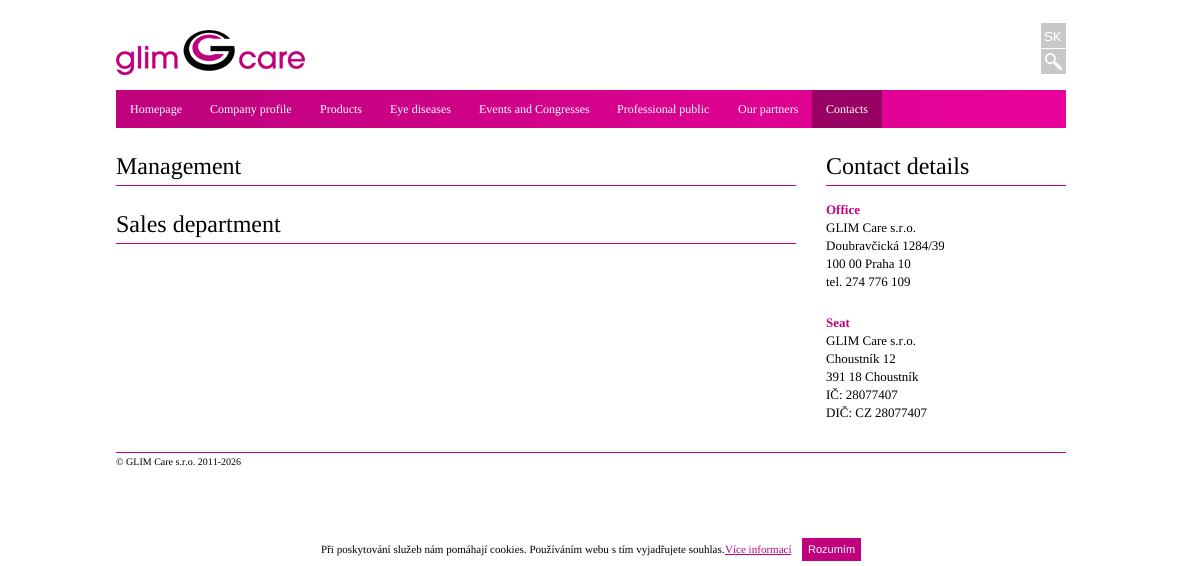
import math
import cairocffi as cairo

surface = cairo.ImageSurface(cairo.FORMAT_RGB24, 1182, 566)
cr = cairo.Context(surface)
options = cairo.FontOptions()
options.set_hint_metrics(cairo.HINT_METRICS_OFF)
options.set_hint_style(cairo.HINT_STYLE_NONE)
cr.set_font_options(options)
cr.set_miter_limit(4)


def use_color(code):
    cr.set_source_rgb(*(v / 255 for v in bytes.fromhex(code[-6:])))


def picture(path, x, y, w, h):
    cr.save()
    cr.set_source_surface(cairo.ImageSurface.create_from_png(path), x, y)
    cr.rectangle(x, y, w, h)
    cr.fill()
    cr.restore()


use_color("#ffffff")
cr.paint()
picture("img1.png", 116, 30, 189, 45)
picture("img2.png", 1041, 23, 25, 25)
picture("img3.png", 1041, 49, 25, 25)
use_color("#c0027e")
cr.rectangle(116, 90, 148, 38)
cr.fill()
picture("img4.png", 264, 90, 802, 38)
cr.select_font_face("Liberation Serif")
cr.set_font_size(12)
use_color("#ffffff")
cr.move_to(130, 113)
cr.show_text("Homepage")
cr.move_to(210, 113)
cr.show_text("Company profile")
cr.move_to(320, 113)
cr.show_text("Products")
cr.move_to(390, 113)
cr.show_text("Eye diseases")
cr.move_to(479, 113)
cr.show_text("Events and Congresses")
cr.move_to(617, 113)
cr.show_text("Professional public")
cr.move_to(738, 113)
cr.show_text("Our partners")
use_color("#970263")
cr.rectangle(812, 90, 70, 38)
cr.fill()
use_color("#ffffff")
cr.move_to(826, 113)
cr.show_text("Contacts")
use_color("#c0027e")
cr.rectangle(116, 185, 680, 1)
cr.fill()
cr.set_font_size(24)
use_color("#000000")
cr.move_to(116, 174)
cr.show_text("Management")
use_color("#c0027e")
cr.rectangle(116, 243, 680, 1)
cr.fill()
use_color("#000000")
cr.move_to(116, 232)
cr.show_text("Sales department")
use_color("#c0027e")
cr.rectangle(826, 185, 240, 1)
cr.fill()
use_color("#000000")
cr.move_to(826, 174)
cr.show_text("Contact details")
cr.select_font_face("Liberation Serif", cairo.FONT_SLANT_NORMAL, cairo.FONT_WEIGHT_BOLD)
cr.set_font_size(13)
use_color("#c0027e")
cr.move_to(826, 214)
cr.show_text("Office")
cr.select_font_face("Liberation Serif")
use_color("#000000")
cr.move_to(826, 232)
cr.show_text("GLIM Care s.r.o.")
cr.move_to(826, 250)
cr.show_text("Doubravčická 1284/39")
cr.move_to(826, 268)
cr.show_text("100 00 Praha 10")
cr.move_to(826, 286)
cr.show_text("tel. 274 776 109")
cr.select_font_face("Liberation Serif", cairo.FONT_SLANT_NORMAL, cairo.FONT_WEIGHT_BOLD)
use_color("#c0027e")
cr.move_to(826, 327)
cr.show_text("Seat")
cr.select_font_face("Liberation Serif")
use_color("#000000")
cr.move_to(826, 345)
cr.show_text("GLIM Care s.r.o.")
cr.move_to(826, 363)
cr.show_text("Choustník 12")
cr.move_to(826, 381)
cr.show_text("391 18 Choustník")
cr.move_to(826, 399)
cr.show_text("IČ: 28077407")
cr.move_to(826, 417)
cr.show_text("DIČ: CZ 28077407")
use_color("#c0027e")
cr.rectangle(116, 452, 950, 1)
cr.fill()
cr.set_font_size(10)
use_color("#000000")
cr.move_to(116, 465)
cr.show_text("© GLIM Care s.r.o. 2011-2026")
cr.set_font_size(11.05)
cr.move_to(321, 553)
cr.show_text("Při poskytování služeb nám pomáhají cookies. Používáním webu s tím vyjadřujete souhlas.")
use_color("#c0027e")
cr.move_to(725, 553)
cr.show_text("Více informací")
cr.rectangle(725, 554, 66, 1)
cr.fill()
cr.rectangle(802, 538, 59, 23)
cr.fill()
cr.select_font_face("Liberation Sans")
cr.set_font_size(11)
use_color("#ffffff")
cr.move_to(808, 553)
cr.show_text("Rozumím")
surface.write_to_png("result.png")
